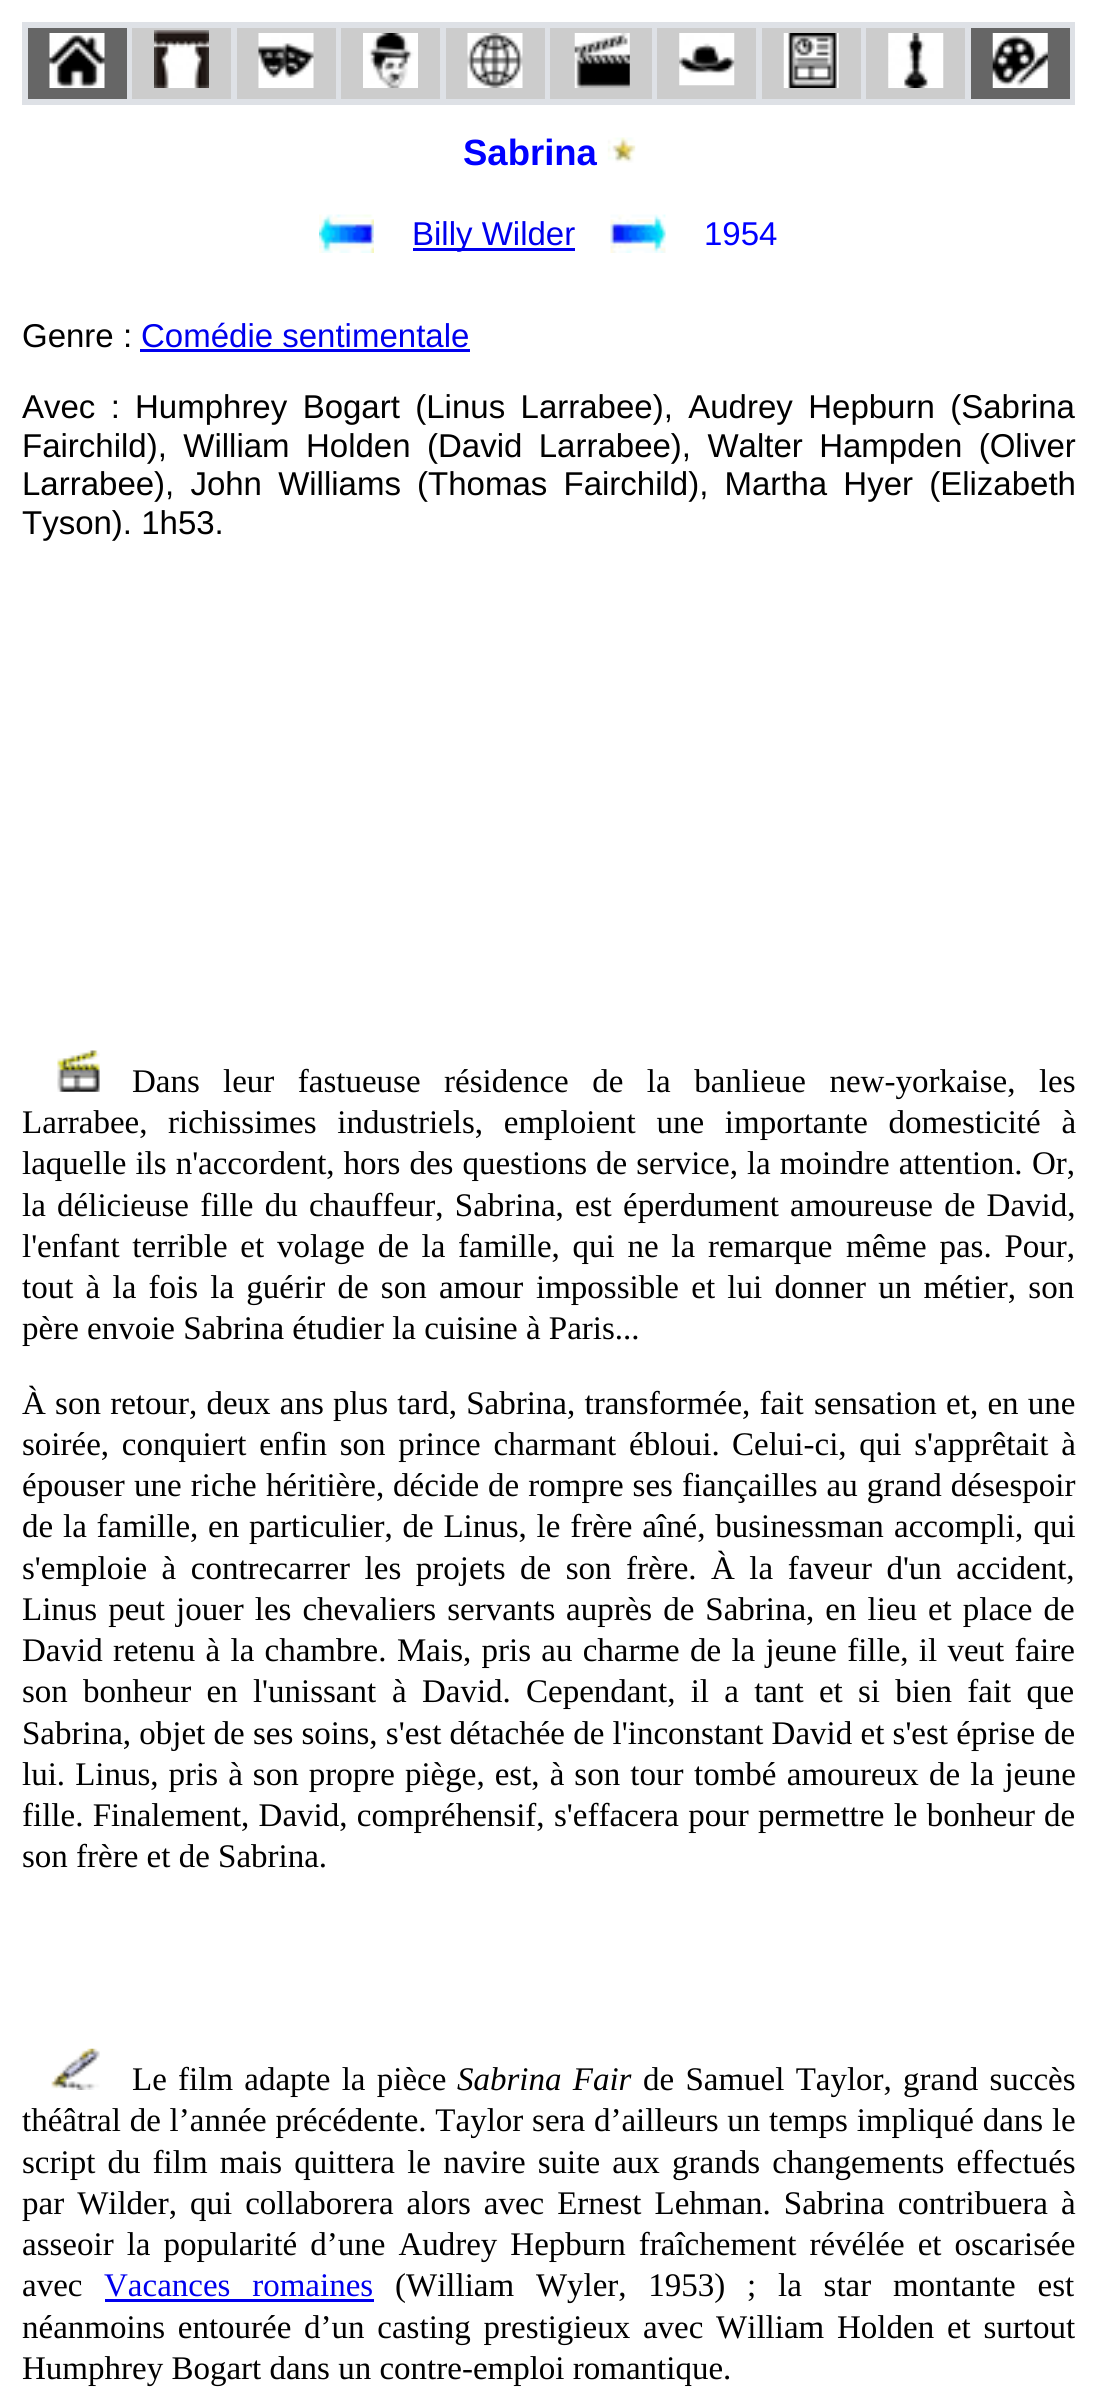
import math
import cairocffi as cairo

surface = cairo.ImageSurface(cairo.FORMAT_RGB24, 1095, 2403)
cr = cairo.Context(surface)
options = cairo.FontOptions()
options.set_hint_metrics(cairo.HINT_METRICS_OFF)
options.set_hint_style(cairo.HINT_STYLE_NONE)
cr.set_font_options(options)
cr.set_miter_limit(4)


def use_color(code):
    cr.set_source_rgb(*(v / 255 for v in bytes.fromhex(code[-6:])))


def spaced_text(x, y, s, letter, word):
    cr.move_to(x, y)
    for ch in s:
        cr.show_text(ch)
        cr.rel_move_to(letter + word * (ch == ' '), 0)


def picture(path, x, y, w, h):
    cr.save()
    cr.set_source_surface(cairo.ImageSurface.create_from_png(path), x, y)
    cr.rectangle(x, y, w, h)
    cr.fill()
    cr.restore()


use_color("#ffffff")
cr.paint()
use_color("#dee1e6")
cr.rectangle(22, 22, 1053, 83)
cr.fill()
use_color("#666666")
cr.rectangle(28, 28, 99, 71)
cr.fill()
picture("img1.png", 49, 33, 56, 55)
use_color("#cccccc")
cr.rectangle(132, 28, 99, 71)
cr.fill()
picture("img2.png", 154, 30, 55, 58)
cr.rectangle(237, 28, 99, 71)
cr.fill()
picture("img3.png", 258, 33, 56, 55)
cr.rectangle(341, 28, 99, 71)
cr.fill()
picture("img4.png", 363, 33, 55, 55)
cr.rectangle(446, 28, 99, 71)
cr.fill()
picture("img5.png", 467, 33, 56, 55)
cr.rectangle(550, 28, 102, 71)
cr.fill()
picture("img6.png", 574, 33, 56, 55)
cr.rectangle(657, 28, 99, 71)
cr.fill()
picture("img7.png", 679, 33, 56, 53)
cr.rectangle(762, 28, 99, 71)
cr.fill()
picture("img8.png", 783, 33, 56, 55)
cr.rectangle(866, 28, 99, 71)
cr.fill()
picture("img9.png", 888, 33, 56, 55)
use_color("#666666")
cr.rectangle(971, 28, 99, 71)
cr.fill()
picture("img10.png", 992, 33, 56, 55)
cr.select_font_face("Liberation Sans", cairo.FONT_SLANT_NORMAL, cairo.FONT_WEIGHT_BOLD)
cr.set_font_size(36.5)
use_color("#0000ff")
cr.move_to(463, 165)
cr.show_text("Sabrina")
picture("img11.png", 607, 137, 29, 26)
picture("img12.png", 319, 214, 55, 39)
use_color("#0000ee")
cr.rectangle(413, 248, 162, 3)
cr.fill()
cr.select_font_face("Liberation Sans")
cr.set_font_size(33)
cr.move_to(412, 245)
cr.show_text("Billy Wilder")
picture("img13.png", 610, 214, 56, 39)
use_color("#0000ff")
cr.move_to(704, 245)
cr.show_text("1954")
use_color("#000000")
cr.move_to(22, 347)
cr.show_text("Genre :")
use_color("#0000ee")
cr.move_to(141, 347)
cr.show_text("Comédie sentimentale")
cr.rectangle(140, 349, 330, 3)
cr.fill()
use_color("#000000")
spaced_text(22, 418, "Avec :", 0, 6.25)
spaced_text(135, 418, "Humphrey Bogart (Linus Larrabee), Audrey Hepburn (Sabrina", 0, 6.25)
spaced_text(22, 457, "Fairchild), William Holden (David Larrabee), Walter Hampden (Oliver", 0, 7.25)
spaced_text(22, 495, "Larrabee), John Williams (Thomas Fairchild), Martha Hyer (Elizabeth", 0, 7)
cr.move_to(22, 534)
cr.show_text("Tyson). 1h53.")
picture("img14.png", 57, 1050, 43, 42)
cr.select_font_face("Liberation Serif")
cr.move_to(132, 1092)
cr.show_text("Dans")
spaced_text(223, 1092, "leur fastueuse résidence de la banlieue new-yorkaise, les", 0, 15.25)
cr.move_to(22, 1133)
cr.show_text("Larrabee,")
spaced_text(168, 1133, "richissimes industriels, emploient une importante domesticité à", 0, 12.5)
spaced_text(22, 1174, "laquelle ils n'accordent, hors des questions de service, la moindre attention.", 0, 0.75)
cr.move_to(1032, 1174)
cr.show_text("Or,")
spaced_text(22, 1216, "la délicieuse fille du chauffeur, Sabrina, est éperdument", 0, 3)
spaced_text(790, 1216, "amoureuse de David,", 0, 3)
spaced_text(22, 1257, "l'enfant terrible et volage de la famille, qui ne la remarque", 0, 4.5)
spaced_text(846, 1257, "même pas. Pour,", 0, 4.5)
spaced_text(22, 1298, "tout à la fois la guérir de son amour", 0, 4)
spaced_text(536, 1298, "impossible et lui donner un métier, son", 0, 4)
cr.move_to(22, 1339)
cr.show_text("père envoie Sabrina étudier la cuisine à Paris...")
spaced_text(22, 1414, "À son retour, deux ans plus tard, Sabrina, transformée, fait", 0, 1)
spaced_text(814, 1414, "sensation et, en une", 0, 1)
spaced_text(22, 1455, "soirée, conquiert enfin son prince charmant ébloui.", 0, 4.5)
spaced_text(732, 1455, "Celui-ci, qui s'apprêtait à", 0, 4.5)
spaced_text(22, 1496, "épouser une riche héritière,", 0, 1)
spaced_text(393, 1496, "décide de rompre ses fiançailles au grand désespoir", 0, 0.75)
cr.move_to(22, 1537)
cr.show_text("de")
spaced_text(63, 1537, "la famille, en particulier, de Linus, le frère aîné, businessman", 0, 1.5)
spaced_text(894, 1537, "accompli, qui", 0, 2)
spaced_text(22, 1579, "s'emploie à contrecarrer les projets de son frère.", 0, 6.25)
spaced_text(711, 1579, "À la faveur d'un accident,", 0, 6.25)
spaced_text(22, 1620, "Linus peut jouer les chevaliers servants", 0, 2.75)
spaced_text(566, 1620, "auprès de Sabrina, en lieu et place de", 0, 2.75)
spaced_text(22, 1661, "David retenu à la chambre.", 0, 2)
spaced_text(397, 1661, "Mais, pris au charme de la jeune fille, il veut faire", 0, 2)
spaced_text(22, 1702, "son bonheur en l'unissant", 0, 7)
spaced_text(392, 1702, "à David. Cependant, il a tant et si bien fait que", 0, 7)
cr.move_to(22, 1744)
cr.show_text("Sabrina, objet de ses soins, s'est détachée de l'inconstant David et s'est éprise")
cr.move_to(1044, 1744)
cr.show_text("de")
spaced_text(22, 1785, "lui. Linus, pris à son propre piège, est, à son tour", 0, 1.8)
spaced_text(694, 1785, "tombé amoureux de la jeune", 0, 2)
spaced_text(22, 1826, "fille. Finalement, David, compréhensif,", 0, 1)
spaced_text(554, 1826, "s'effacera pour permettre le bonheur de", 0, 1)
cr.move_to(22, 1867)
cr.show_text("son frère et de Sabrina.")
picture("img15.png", 51, 2048, 49, 42)
spaced_text(132, 2090, "Le film adapte la pièce", 0, 3)
cr.select_font_face("Liberation Serif", cairo.FONT_SLANT_ITALIC)
spaced_text(457, 2090, "Sabrina Fair", 0, 3)
cr.select_font_face("Liberation Serif")
spaced_text(643, 2090, "de Samuel Taylor, grand succès", 0, 3)
spaced_text(22, 2131, "théâtral de l’année précédente. Taylor sera d’ailleurs un temps impliqué dans le", 0, 0.5)
spaced_text(22, 2173, "script du film mais quittera le navire suite aux grands changements effectués", 0, 3.9)
spaced_text(22, 2214, "par Wilder, qui collaborera alors avec Ernest Lehman. Sabrina contribuera à", 0, 4.75)
spaced_text(22, 2255, "asseoir la popularité d’une Audrey Hepburn fraîchement révélée et oscarisée", 0, 4.75)
cr.move_to(22, 2296)
cr.show_text("avec")
use_color("#0000ee")
spaced_text(104, 2296, "Vacances romaines", 0, 13.5)
cr.rectangle(105, 2299, 269, 3)
cr.fill()
use_color("#000000")
spaced_text(395, 2296, "(William Wyler, 1953) ; la star montante est", 0, 13.5)
spaced_text(22, 2338, "néanmoins entourée d’un casting prestigieux avec William Holden et surtout", 0, 4.5)
cr.move_to(22, 2379)
cr.show_text("Humphrey Bogart dans un contre-emploi romantique.")
surface.write_to_png("result.png")
